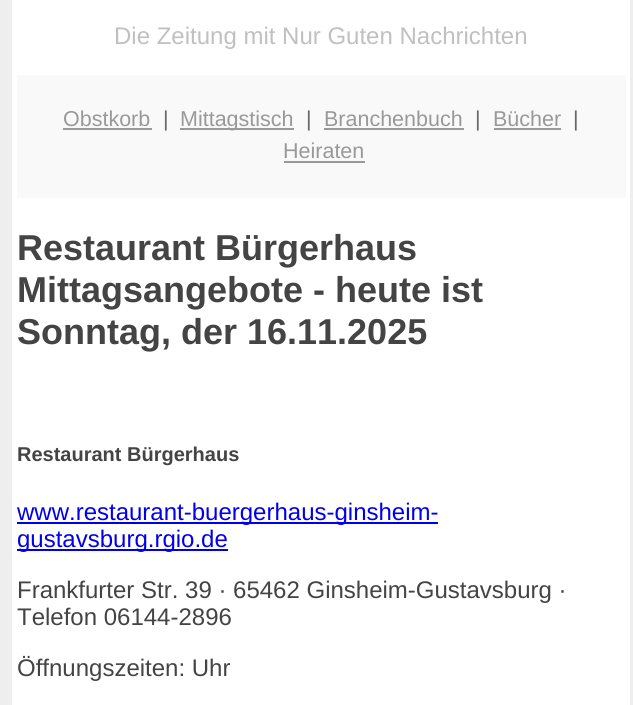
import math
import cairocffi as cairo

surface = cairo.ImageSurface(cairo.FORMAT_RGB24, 633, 705)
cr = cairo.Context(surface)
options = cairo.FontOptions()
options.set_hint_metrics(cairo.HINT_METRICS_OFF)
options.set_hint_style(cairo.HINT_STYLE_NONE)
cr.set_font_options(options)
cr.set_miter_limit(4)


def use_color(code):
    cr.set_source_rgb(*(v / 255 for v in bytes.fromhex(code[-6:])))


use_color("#eeeeee")
cr.paint()
use_color("#ffffff")
cr.rectangle(12, 0, 618, 705)
cr.fill()
cr.select_font_face("Liberation Sans")
cr.set_font_size(24)
use_color("#c0c0c0")
cr.move_to(114, 44)
cr.show_text("Die Zeitung mit Nur Guten Nachrichten")
use_color("#f9f9f9")
cr.rectangle(17, 75, 609, 123)
cr.fill()
cr.set_font_size(21.5)
use_color("#999999")
cr.move_to(63, 126)
cr.show_text("Obstkorb")
cr.rectangle(63, 128, 89, 2)
cr.fill()
use_color("#666666")
cr.move_to(163, 126)
cr.show_text("|")
use_color("#999999")
cr.rectangle(180, 128, 114, 2)
cr.fill()
cr.move_to(180, 126)
cr.show_text("Mittagstisch")
use_color("#666666")
cr.move_to(306, 126)
cr.show_text("|")
use_color("#999999")
cr.move_to(324, 126)
cr.show_text("Branchenbuch")
cr.rectangle(324, 128, 140, 2)
cr.fill()
use_color("#666666")
cr.move_to(475, 126)
cr.show_text("|")
use_color("#999999")
cr.move_to(493, 126)
cr.show_text("Bücher")
cr.rectangle(494, 128, 67, 2)
cr.fill()
use_color("#666666")
cr.move_to(573, 126)
cr.show_text("|")
use_color("#999999")
cr.move_to(283, 158)
cr.show_text("Heiraten")
cr.rectangle(284, 161, 81, 2)
cr.fill()
cr.select_font_face("Liberation Sans", cairo.FONT_SLANT_NORMAL, cairo.FONT_WEIGHT_BOLD)
cr.set_font_size(36)
use_color("#444444")
cr.move_to(17, 260)
cr.show_text("Restaurant Bürgerhaus")
cr.move_to(17, 302)
cr.show_text("Mittagsangebote - heute ist")
cr.move_to(17, 344)
cr.show_text("Sonntag, der 16.11.2025")
cr.set_font_size(20)
cr.move_to(17, 461)
cr.show_text("Restaurant Bürgerhaus")
use_color("#0000ee")
cr.rectangle(17, 522, 421, 2)
cr.fill()
cr.select_font_face("Liberation Sans")
cr.set_font_size(24)
cr.move_to(17, 520)
cr.show_text("www.restaurant-buergerhaus-ginsheim-")
cr.rectangle(17, 549, 211, 2)
cr.fill()
cr.move_to(17, 547)
cr.show_text("gustavsburg.rgio.de")
use_color("#444444")
cr.move_to(17, 598)
cr.show_text("Frankfurter Str. 39 · 65462 Ginsheim-Gustavsburg ·")
cr.move_to(17, 625)
cr.show_text("Telefon 06144-2896")
cr.move_to(17, 676)
cr.show_text("Öffnungszeiten: Uhr")
surface.write_to_png("result.png")
